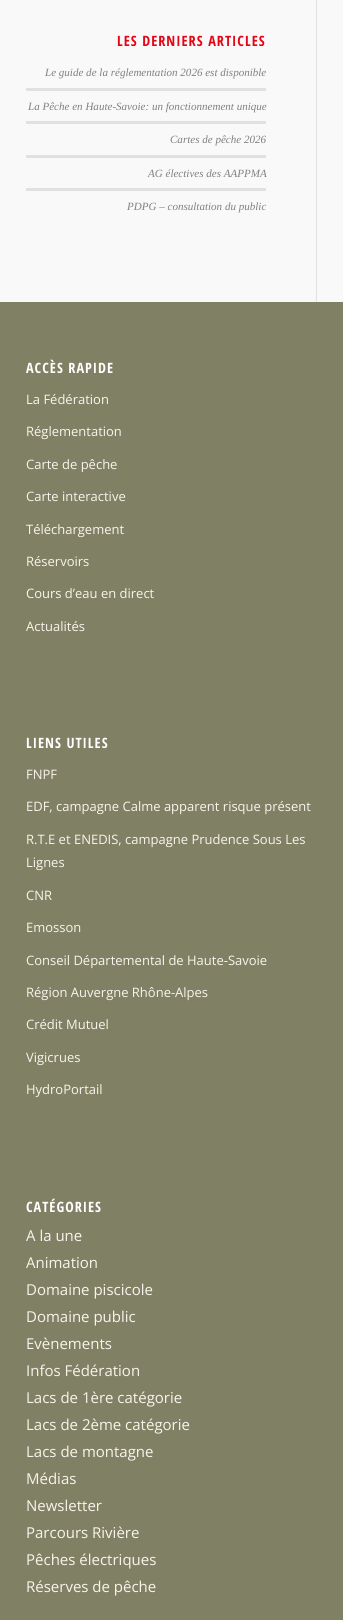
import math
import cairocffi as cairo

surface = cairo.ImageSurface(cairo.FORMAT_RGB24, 343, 1620)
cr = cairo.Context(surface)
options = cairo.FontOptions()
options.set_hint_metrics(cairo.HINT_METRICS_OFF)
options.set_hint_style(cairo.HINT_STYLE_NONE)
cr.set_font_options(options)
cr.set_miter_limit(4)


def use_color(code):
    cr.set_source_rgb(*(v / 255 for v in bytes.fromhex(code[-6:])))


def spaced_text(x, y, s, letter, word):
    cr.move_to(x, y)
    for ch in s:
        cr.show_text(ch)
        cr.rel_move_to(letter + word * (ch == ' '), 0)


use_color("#f9f9f9")
cr.paint()
use_color("#e1e1e1")
cr.rectangle(316, 0, 1, 302)
cr.fill()
cr.select_font_face("Open Sans Condensed", cairo.FONT_SLANT_NORMAL, cairo.FONT_WEIGHT_BOLD)
cr.set_font_size(14.25)
use_color("#e30615")
spaced_text(117, 46, "LES DERNIERS ARTICLES", 1, 0)
cr.select_font_face("Liberation Serif", cairo.FONT_SLANT_ITALIC)
cr.set_font_size(11.05)
use_color("#808080")
cr.move_to(45, 76)
cr.show_text("Le guide de la réglementation 2026 est disponible")
use_color("#e1e1e1")
cr.rectangle(26, 88, 240, 3)
cr.fill()
use_color("#808080")
cr.move_to(28, 110)
cr.show_text("La Pêche en Haute-Savoie: un fonctionnement unique")
use_color("#e1e1e1")
cr.rectangle(26, 121, 240, 3)
cr.fill()
use_color("#808080")
cr.move_to(170, 143)
cr.show_text("Cartes de pêche 2026")
use_color("#e1e1e1")
cr.rectangle(26, 155, 240, 3)
cr.fill()
use_color("#808080")
cr.move_to(148, 177)
cr.show_text("AG électives des AAPPMA")
use_color("#e1e1e1")
cr.rectangle(26, 188, 240, 3)
cr.fill()
use_color("#808080")
cr.move_to(127, 210)
cr.show_text("PDPG – consultation du public")
use_color("#808065")
cr.rectangle(0, 302, 343, 1318)
cr.fill()
cr.select_font_face("Open Sans Condensed", cairo.FONT_SLANT_NORMAL, cairo.FONT_WEIGHT_BOLD)
cr.set_font_size(14.25)
use_color("#ffffff")
spaced_text(26, 373, "ACCÈS RAPIDE", 1, 0)
cr.select_font_face("Open Sans")
cr.set_font_size(13)
use_color("#f9f4eb")
cr.move_to(26, 404)
cr.show_text("La Fédération")
cr.move_to(26, 436)
cr.show_text("Réglementation")
cr.move_to(26, 469)
cr.show_text("Carte de pêche")
cr.move_to(26, 501)
cr.show_text("Carte interactive")
cr.move_to(26, 534)
cr.show_text("Téléchargement")
cr.move_to(26, 566)
cr.show_text("Réservoirs")
cr.move_to(26, 598)
cr.show_text("Cours d’eau en direct")
cr.move_to(26, 631)
cr.show_text("Actualités")
cr.select_font_face("Open Sans Condensed", cairo.FONT_SLANT_NORMAL, cairo.FONT_WEIGHT_BOLD)
cr.set_font_size(14.25)
use_color("#ffffff")
spaced_text(26, 748, "LIENS UTILES", 1, 0)
cr.select_font_face("Open Sans")
cr.set_font_size(13)
use_color("#f9f4eb")
cr.move_to(26, 779)
cr.show_text("FNPF")
cr.move_to(26, 811)
cr.show_text("EDF, campagne Calme apparent risque présent")
cr.move_to(26, 844)
cr.show_text("R.T.E et ENEDIS, campagne Prudence Sous Les")
cr.move_to(26, 867)
cr.show_text("Lignes")
cr.move_to(26, 900)
cr.show_text("CNR")
cr.move_to(26, 932)
cr.show_text("Emosson")
cr.move_to(26, 965)
cr.show_text("Conseil Départemental de Haute-Savoie")
cr.move_to(26, 997)
cr.show_text("Région Auvergne Rhône-Alpes")
cr.move_to(26, 1029)
cr.show_text("Crédit Mutuel")
cr.move_to(26, 1062)
cr.show_text("Vigicrues")
cr.move_to(26, 1094)
cr.show_text("HydroPortail")
cr.select_font_face("Open Sans Condensed", cairo.FONT_SLANT_NORMAL, cairo.FONT_WEIGHT_BOLD)
cr.set_font_size(14.25)
use_color("#ffffff")
spaced_text(26, 1212, "CATÉGORIES", 1, 0)
cr.select_font_face("Open Sans")
cr.set_font_size(15)
use_color("#f9f4eb")
cr.move_to(26, 1241)
cr.show_text("A la une")
cr.move_to(26, 1268)
cr.show_text("Animation")
cr.move_to(26, 1295)
cr.show_text("Domaine piscicole")
cr.move_to(26, 1322)
cr.show_text("Domaine public")
cr.move_to(26, 1349)
cr.show_text("Evènements")
cr.move_to(26, 1376)
cr.show_text("Infos Fédération")
cr.move_to(26, 1403)
cr.show_text("Lacs de 1ère catégorie")
cr.move_to(26, 1430)
cr.show_text("Lacs de 2ème catégorie")
cr.move_to(26, 1457)
cr.show_text("Lacs de montagne")
cr.move_to(26, 1484)
cr.show_text("Médias")
cr.move_to(26, 1511)
cr.show_text("Newsletter")
cr.move_to(26, 1538)
cr.show_text("Parcours Rivière")
cr.move_to(26, 1565)
cr.show_text("Pêches électriques")
cr.move_to(26, 1592)
cr.show_text("Réserves de pêche")
surface.write_to_png("result.png")
